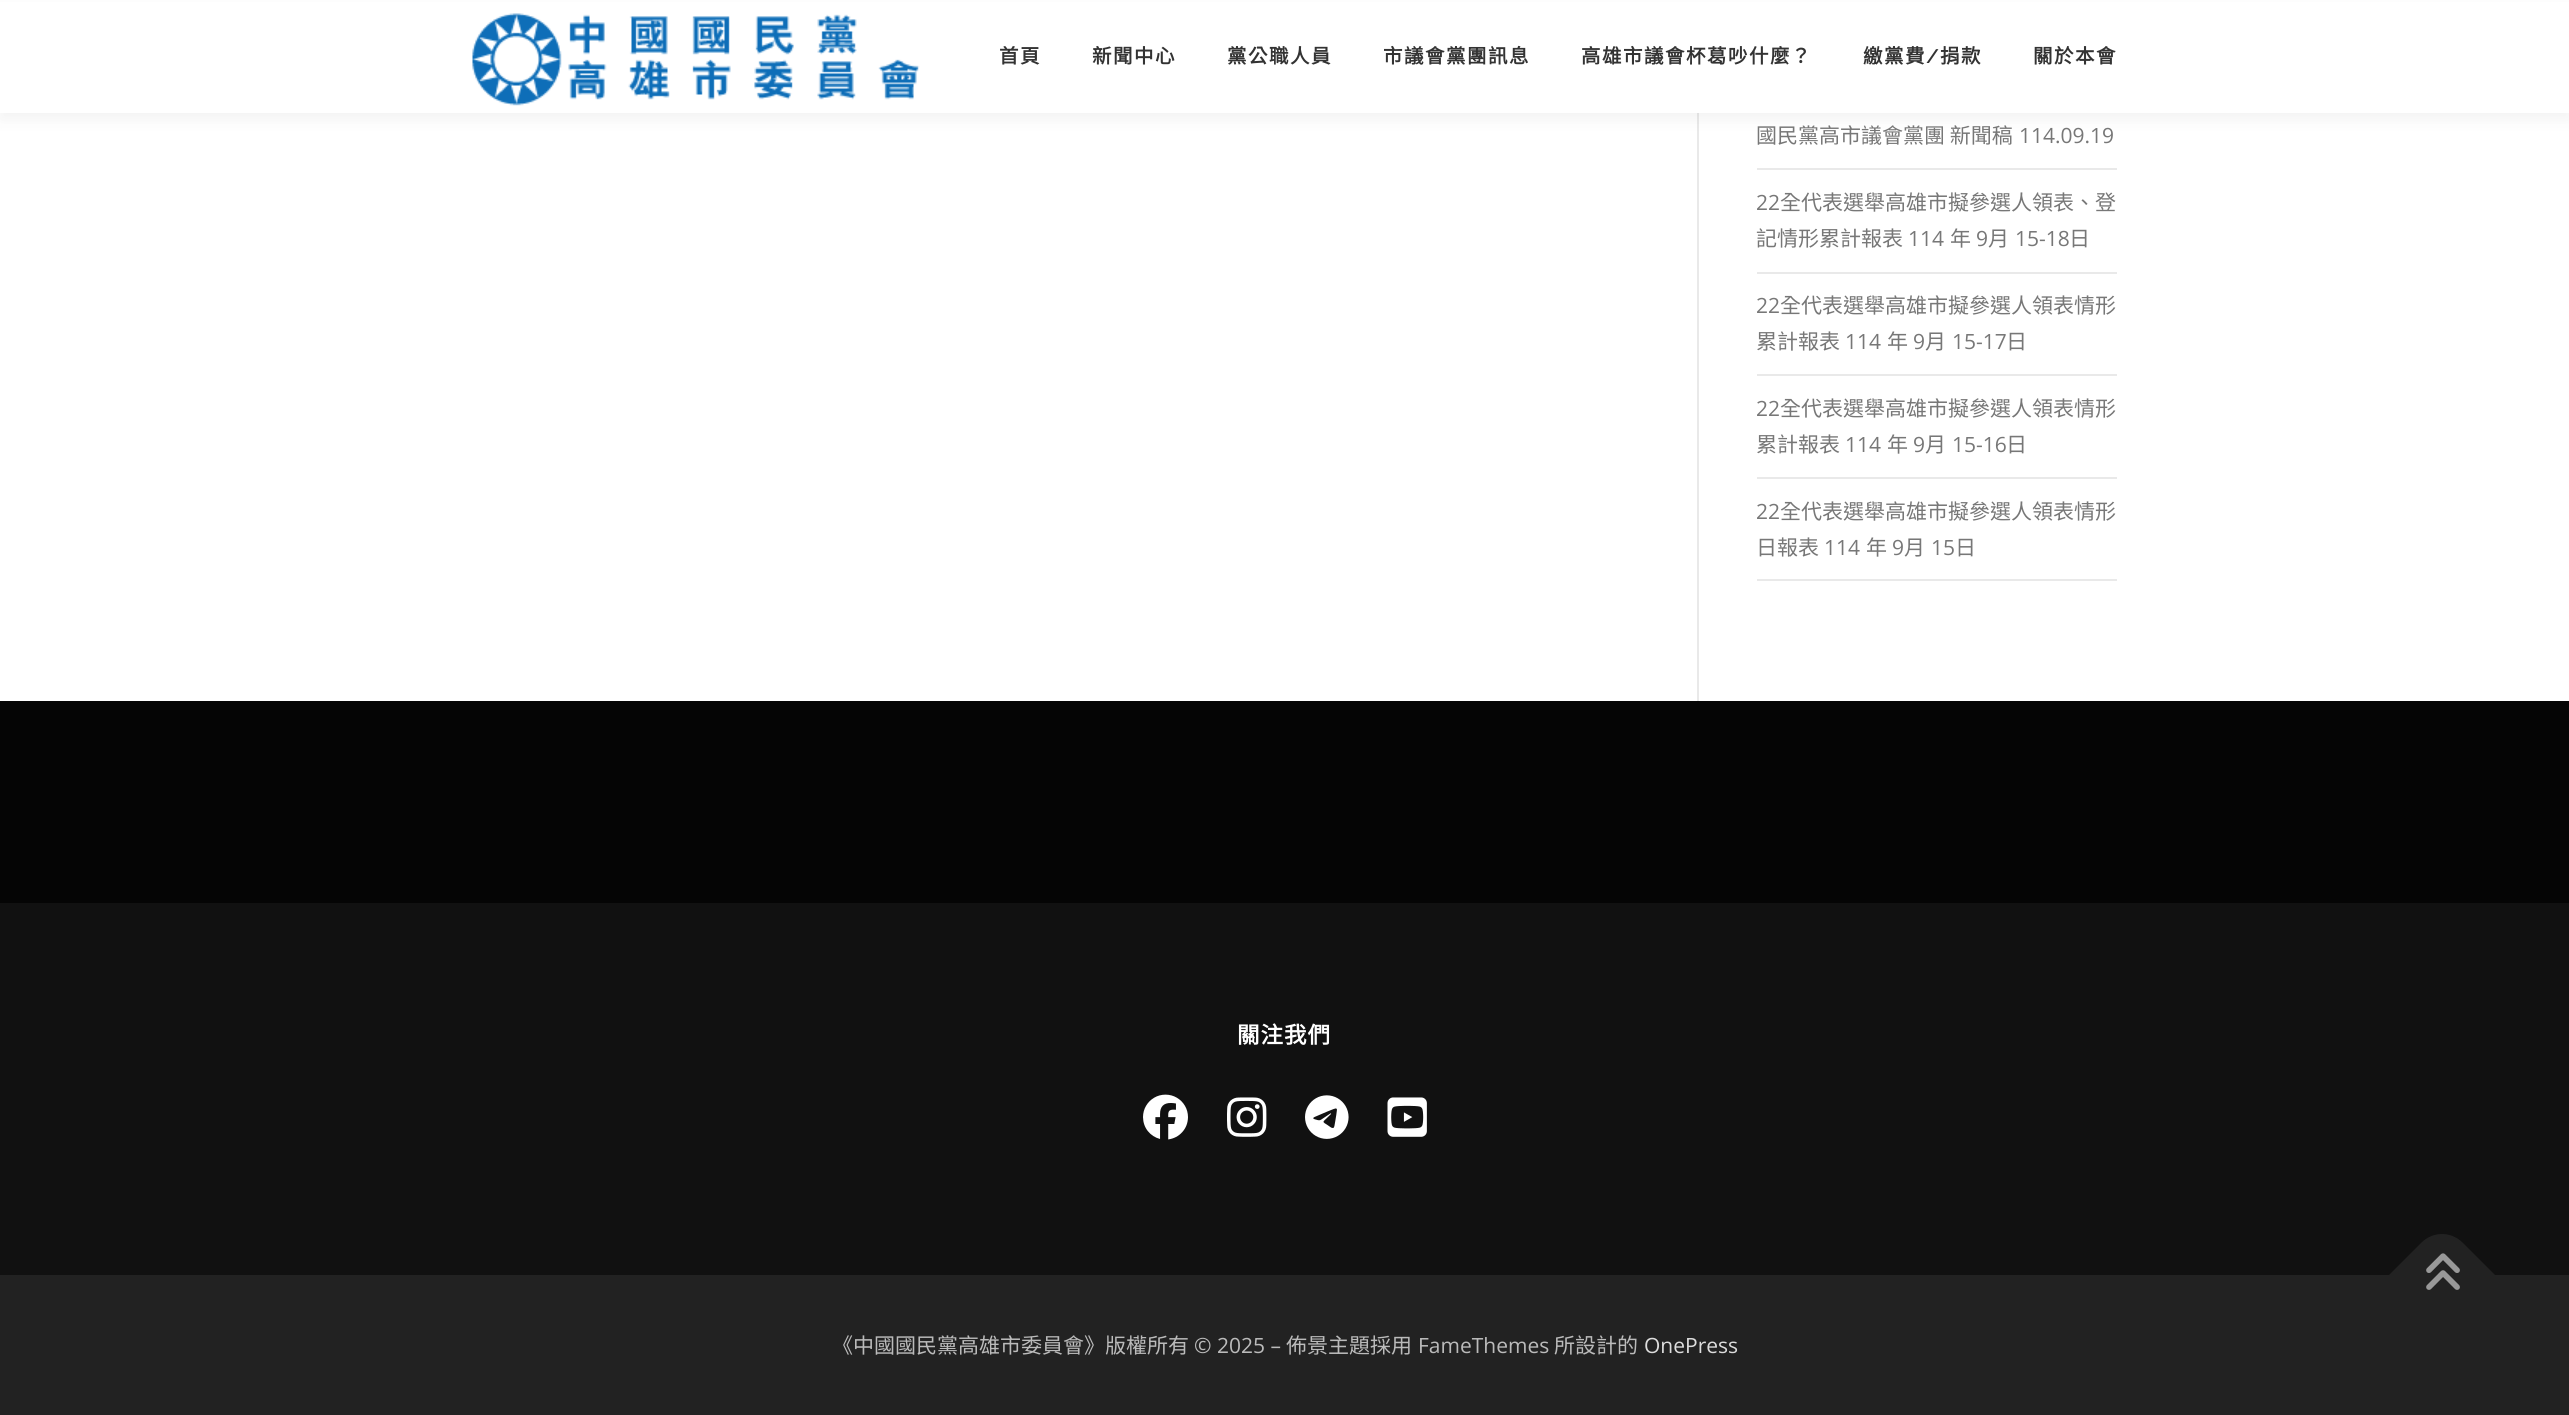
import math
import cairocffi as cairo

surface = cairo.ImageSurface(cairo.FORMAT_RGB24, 2569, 1415)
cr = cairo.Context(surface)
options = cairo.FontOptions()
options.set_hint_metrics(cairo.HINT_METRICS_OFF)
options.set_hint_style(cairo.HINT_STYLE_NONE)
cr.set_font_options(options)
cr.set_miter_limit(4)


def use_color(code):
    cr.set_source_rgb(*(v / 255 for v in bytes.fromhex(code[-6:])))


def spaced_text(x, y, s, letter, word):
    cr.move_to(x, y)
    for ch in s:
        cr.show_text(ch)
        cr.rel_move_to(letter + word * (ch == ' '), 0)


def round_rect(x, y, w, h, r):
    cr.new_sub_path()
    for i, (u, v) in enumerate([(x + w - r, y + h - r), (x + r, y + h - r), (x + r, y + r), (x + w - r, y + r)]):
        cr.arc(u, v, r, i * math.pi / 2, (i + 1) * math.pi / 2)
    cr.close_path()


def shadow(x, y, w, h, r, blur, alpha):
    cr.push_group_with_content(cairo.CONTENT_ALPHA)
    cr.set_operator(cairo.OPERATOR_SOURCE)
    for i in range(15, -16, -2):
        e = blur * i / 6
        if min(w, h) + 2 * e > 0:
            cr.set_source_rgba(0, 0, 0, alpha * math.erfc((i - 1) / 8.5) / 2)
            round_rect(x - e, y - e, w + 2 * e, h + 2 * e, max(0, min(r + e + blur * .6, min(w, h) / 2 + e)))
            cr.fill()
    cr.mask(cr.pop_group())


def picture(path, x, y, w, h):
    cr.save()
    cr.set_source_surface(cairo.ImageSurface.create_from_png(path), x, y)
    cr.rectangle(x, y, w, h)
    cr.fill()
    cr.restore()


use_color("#ffffff")
cr.paint()
use_color("#e9e9e9")
cr.rectangle(1697, 113, 2, 588)
cr.fill()
use_color("#323232")
shadow(0, 8, 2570, 112, 0, 7.5, 0.06)
use_color("#ffffff")
cr.rectangle(0, 2, 2569, 111)
cr.fill()
picture("img1.png", 472, 13, 448, 93)
cr.select_font_face("Noto Sans CJK TC", cairo.FONT_SLANT_NORMAL, cairo.FONT_WEIGHT_BOLD)
cr.set_font_size(19.5)
use_color("#333333")
spaced_text(999, 63, "首頁", 1.5, 0)
spaced_text(1092, 63, "新聞中心", 1.5, 0)
spaced_text(1227, 63, "黨公職人員", 1.5, 0)
spaced_text(1383, 63, "市議會黨團訊息", 1.5, 0)
spaced_text(1581, 63, "高雄市議會杯葛吵什麼？", 1.5, 0)
spaced_text(1863, 63, "繳黨費", 1.5, 0)
cr.select_font_face("Raleway SemiBold")
spaced_text(1926, 63, "/", 1.5, 0)
cr.select_font_face("Noto Sans CJK TC", cairo.FONT_SLANT_NORMAL, cairo.FONT_WEIGHT_BOLD)
spaced_text(1940, 63, "捐款", 1.5, 0)
spaced_text(2033, 63, "關於本會", 1.5, 0)
use_color("#e9e9e9")
cr.rectangle(1757, 168, 360, 2)
cr.fill()
cr.select_font_face("Noto Sans CJK TC")
cr.set_font_size(21)
use_color("#777777")
cr.move_to(1756, 143)
cr.show_text("國民黨高市議會黨團 新聞稿")
cr.select_font_face("Open Sans")
cr.move_to(2019, 143)
cr.show_text("114.09.19")
use_color("#e9e9e9")
cr.rectangle(1757, 272, 360, 2)
cr.fill()
use_color("#777777")
cr.move_to(1756, 210)
cr.show_text("22")
cr.select_font_face("Noto Sans CJK TC")
cr.move_to(1780, 210)
cr.show_text("全代表選舉高雄市擬參選人領表、登")
cr.move_to(1756, 246)
cr.show_text("記情形累計報表")
cr.select_font_face("Open Sans")
cr.move_to(1908, 246)
cr.show_text("114")
cr.select_font_face("Noto Sans CJK TC")
cr.move_to(1950, 246)
cr.show_text("年")
cr.select_font_face("Open Sans")
cr.move_to(1976, 246)
cr.show_text("9")
cr.select_font_face("Noto Sans CJK TC")
cr.move_to(1988, 246)
cr.show_text("月")
cr.select_font_face("Open Sans")
cr.move_to(2015, 246)
cr.show_text("15-18")
cr.select_font_face("Noto Sans CJK TC")
cr.move_to(2069, 246)
cr.show_text("日")
use_color("#e9e9e9")
cr.rectangle(1757, 374, 360, 2)
cr.fill()
cr.select_font_face("Open Sans")
use_color("#777777")
cr.move_to(1756, 313)
cr.show_text("22")
cr.select_font_face("Noto Sans CJK TC")
cr.move_to(1780, 313)
cr.show_text("全代表選舉高雄市擬參選人領表情形")
cr.move_to(1756, 349)
cr.show_text("累計報表")
cr.select_font_face("Open Sans")
cr.move_to(1845, 349)
cr.show_text("114")
cr.select_font_face("Noto Sans CJK TC")
cr.move_to(1887, 349)
cr.show_text("年")
cr.select_font_face("Open Sans")
cr.move_to(1913, 349)
cr.show_text("9")
cr.select_font_face("Noto Sans CJK TC")
cr.move_to(1925, 349)
cr.show_text("月")
cr.select_font_face("Open Sans")
cr.move_to(1952, 349)
cr.show_text("15-17")
cr.select_font_face("Noto Sans CJK TC")
cr.move_to(2006, 349)
cr.show_text("日")
use_color("#e9e9e9")
cr.rectangle(1757, 477, 360, 2)
cr.fill()
cr.select_font_face("Open Sans")
use_color("#777777")
cr.move_to(1756, 416)
cr.show_text("22")
cr.select_font_face("Noto Sans CJK TC")
cr.move_to(1780, 416)
cr.show_text("全代表選舉高雄市擬參選人領表情形")
cr.move_to(1756, 452)
cr.show_text("累計報表")
cr.select_font_face("Open Sans")
cr.move_to(1845, 452)
cr.show_text("114")
cr.select_font_face("Noto Sans CJK TC")
cr.move_to(1887, 452)
cr.show_text("年")
cr.select_font_face("Open Sans")
cr.move_to(1913, 452)
cr.show_text("9")
cr.select_font_face("Noto Sans CJK TC")
cr.move_to(1925, 452)
cr.show_text("月")
cr.select_font_face("Open Sans")
cr.move_to(1952, 452)
cr.show_text("15-16")
cr.select_font_face("Noto Sans CJK TC")
cr.move_to(2006, 452)
cr.show_text("日")
use_color("#e9e9e9")
cr.rectangle(1757, 579, 360, 2)
cr.fill()
cr.select_font_face("Open Sans")
use_color("#777777")
cr.move_to(1756, 519)
cr.show_text("22")
cr.select_font_face("Noto Sans CJK TC")
cr.move_to(1780, 519)
cr.show_text("全代表選舉高雄市擬參選人領表情形")
cr.move_to(1756, 555)
cr.show_text("日報表")
cr.select_font_face("Open Sans")
cr.move_to(1824, 555)
cr.show_text("114")
cr.select_font_face("Noto Sans CJK TC")
cr.move_to(1866, 555)
cr.show_text("年")
cr.select_font_face("Open Sans")
cr.move_to(1892, 555)
cr.show_text("9")
cr.select_font_face("Noto Sans CJK TC")
cr.move_to(1904, 555)
cr.show_text("月")
cr.select_font_face("Open Sans")
cr.move_to(1931, 555)
cr.show_text("15")
cr.select_font_face("Noto Sans CJK TC")
cr.move_to(1955, 555)
cr.show_text("日")
use_color("#111111")
cr.rectangle(0, 903, 2569, 372)
cr.fill()
use_color("#050505")
cr.rectangle(0, 701, 2569, 202)
cr.fill()
cr.select_font_face("Noto Sans CJK TC", cairo.FONT_SLANT_NORMAL, cairo.FONT_WEIGHT_BOLD)
cr.set_font_size(22.5)
use_color("#ffffff")
spaced_text(1237, 1043, "關注我們", 1, 0)
picture("img2.png", 1143, 1094, 45, 46)
picture("img3.png", 1227, 1097, 40, 40)
picture("img4.png", 1305, 1095, 44, 44)
picture("img5.png", 1387, 1097, 40, 40)
use_color("#222222")
cr.rectangle(0, 1275, 2569, 140)
cr.fill()
cr.new_path()
cr.move_to(2389, 1275)
cr.line_to(2421, 1243)
cr.curve_to(2433, 1231, 2451, 1231, 2463, 1243)
cr.line_to(2495, 1275)
cr.line_to(2442, 1328)
cr.close_path()
cr.fill()
picture("img6.png", 2426, 1253, 34, 37)
cr.select_font_face("Noto Sans CJK TC")
cr.set_font_size(21)
use_color("#bbbbbb")
cr.move_to(832, 1353)
cr.show_text("《中國國民黨高雄市委員會》版權所有")
cr.select_font_face("Open Sans")
cr.move_to(1194, 1353)
cr.show_text("© 2025 –")
cr.select_font_face("Noto Sans CJK TC")
cr.move_to(1286, 1353)
cr.show_text("佈景主題採用")
cr.select_font_face("Open Sans")
cr.move_to(1418, 1353)
cr.show_text("FameThemes")
cr.select_font_face("Noto Sans CJK TC")
cr.move_to(1554, 1353)
cr.show_text("所設計的")
cr.select_font_face("Open Sans")
use_color("#dddddd")
cr.move_to(1644, 1353)
cr.show_text("OnePress")
surface.write_to_png("result.png")
